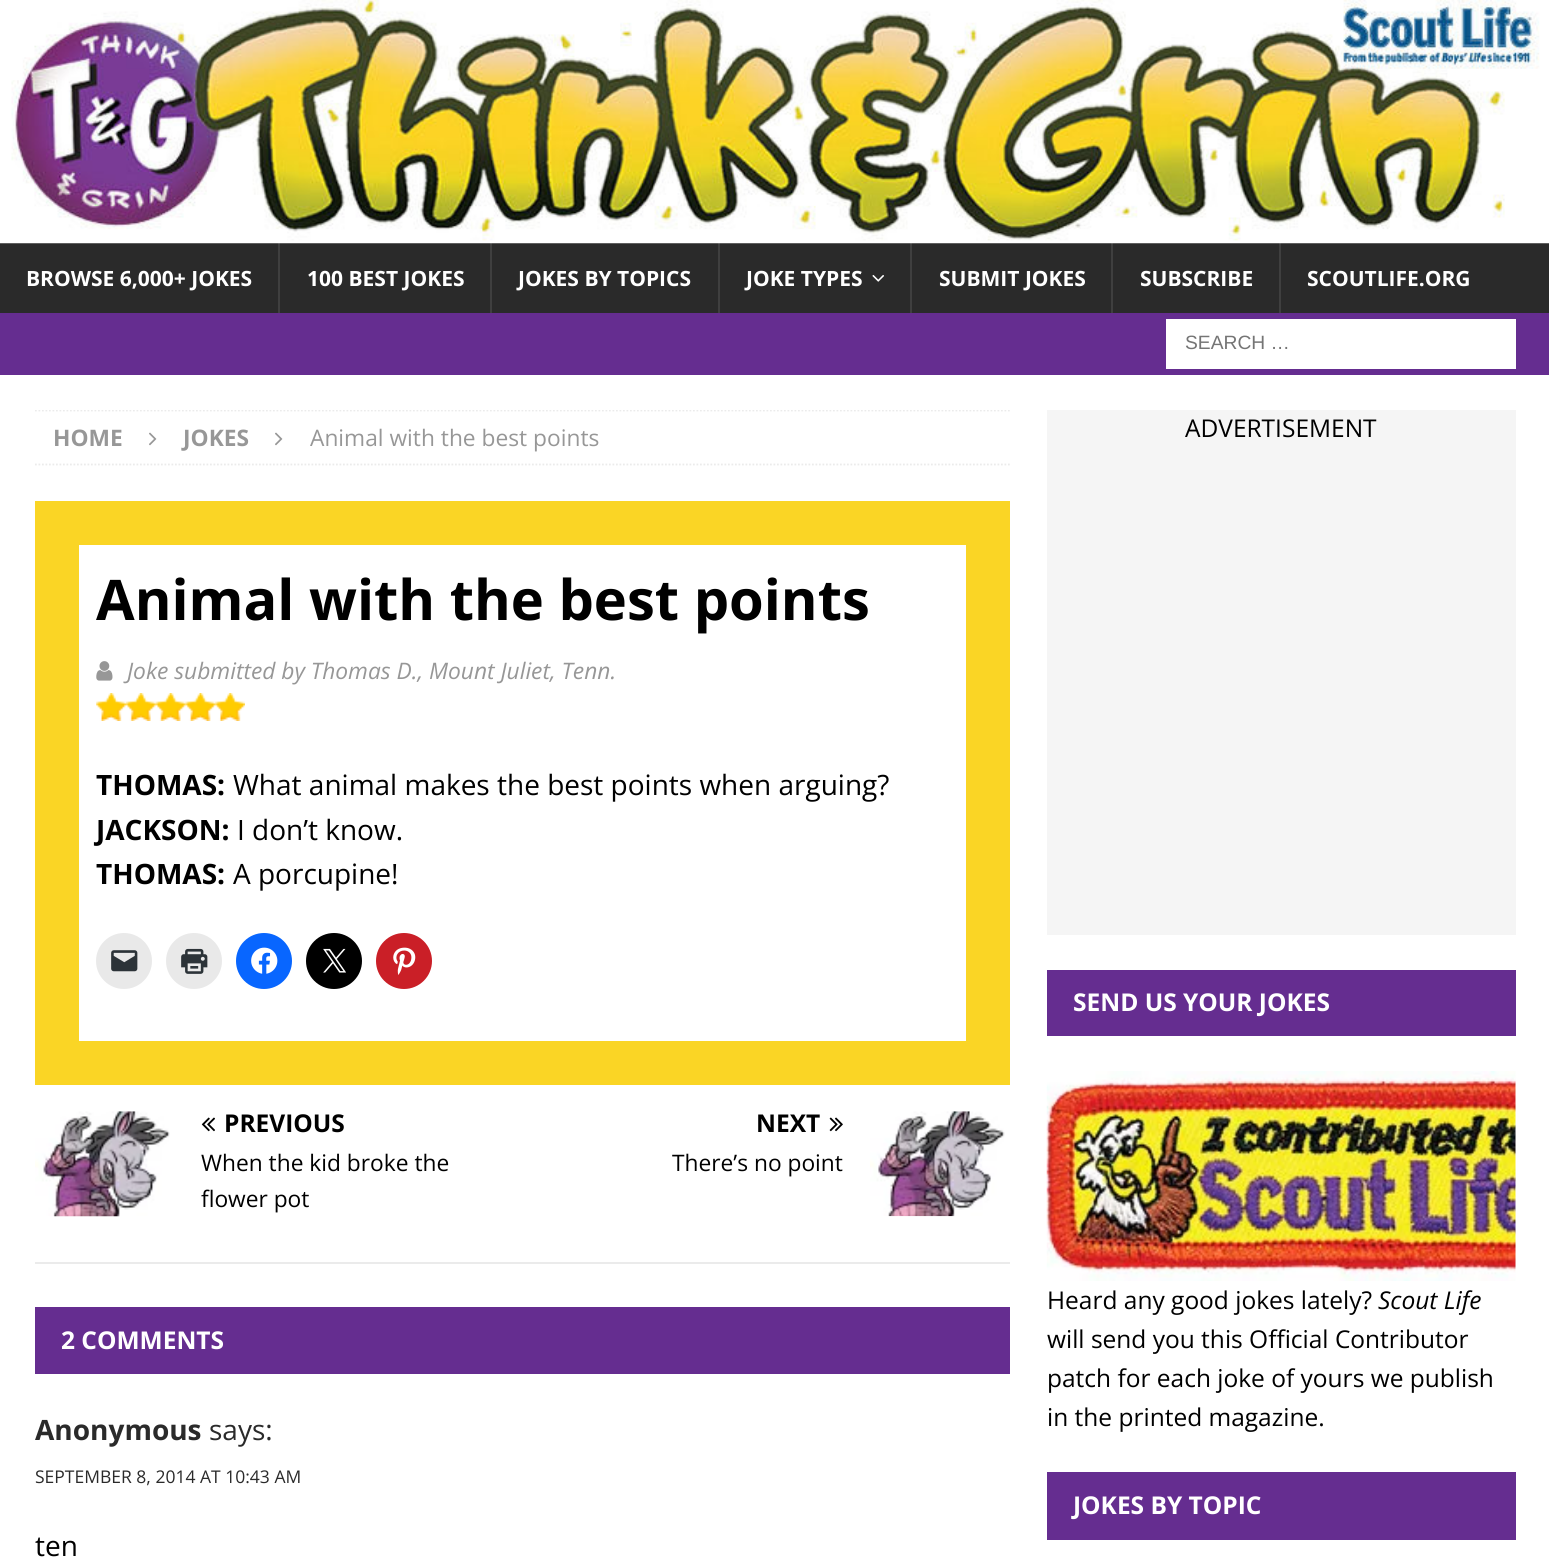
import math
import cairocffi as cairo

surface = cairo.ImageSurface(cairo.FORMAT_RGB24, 1549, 1565)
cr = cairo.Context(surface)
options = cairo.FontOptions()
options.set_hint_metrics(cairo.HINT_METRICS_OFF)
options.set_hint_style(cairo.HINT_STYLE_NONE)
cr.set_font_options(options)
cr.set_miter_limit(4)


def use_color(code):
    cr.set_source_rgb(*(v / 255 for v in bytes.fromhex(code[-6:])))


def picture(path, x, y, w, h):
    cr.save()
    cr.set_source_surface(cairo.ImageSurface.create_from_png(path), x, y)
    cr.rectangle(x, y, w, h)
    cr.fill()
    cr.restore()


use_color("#2a2a2a")
cr.paint()
picture("img1.png", 0, 0, 1549, 244)
cr.select_font_face("Open Sans", cairo.FONT_SLANT_NORMAL, cairo.FONT_WEIGHT_BOLD)
cr.set_font_size(21)
use_color("#ffffff")
cr.move_to(26, 286)
cr.show_text("BROWSE 6,000+ JOKES")
cr.set_source_rgba(1, 1, 1, 0.1)
cr.rectangle(278, 243, 2, 70)
cr.fill()
use_color("#ffffff")
cr.move_to(307, 286)
cr.show_text("100 BEST JOKES")
cr.set_source_rgba(1, 1, 1, 0.1)
cr.rectangle(490, 243, 2, 70)
cr.fill()
use_color("#ffffff")
cr.move_to(518, 286)
cr.show_text("JOKES BY TOPICS")
cr.set_source_rgba(1, 1, 1, 0.1)
cr.rectangle(718, 243, 2, 70)
cr.fill()
use_color("#ffffff")
cr.move_to(746, 286)
cr.show_text("JOKE TYPES")
picture("img2.png", 872, 275, 12, 7)
cr.set_source_rgba(1, 1, 1, 0.1)
cr.rectangle(910, 243, 2, 70)
cr.fill()
use_color("#ffffff")
cr.move_to(939, 286)
cr.show_text("SUBMIT JOKES")
cr.set_source_rgba(1, 1, 1, 0.1)
cr.rectangle(1111, 243, 2, 70)
cr.fill()
use_color("#ffffff")
cr.move_to(1140, 286)
cr.show_text("SUBSCRIBE")
cr.set_source_rgba(1, 1, 1, 0.1)
cr.rectangle(1279, 243, 2, 70)
cr.fill()
use_color("#ffffff")
cr.move_to(1307, 286)
cr.show_text("SCOUTLIFE.ORG")
use_color("#652d90")
cr.rectangle(0, 313, 1549, 62)
cr.fill()
use_color("#ffffff")
cr.rectangle(1166, 319, 350, 50)
cr.fill()
cr.select_font_face("Liberation Sans")
cr.set_font_size(19.25)
use_color("#757575")
cr.move_to(1185, 349)
cr.show_text("SEARCH …")
use_color("#ffffff")
cr.rectangle(0, 375, 1549, 1190)
cr.fill()
cr.save()
cr.rectangle(35, 410, 975, 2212)
cr.clip()
cr.new_path()
cr.move_to(35, 410.5)
cr.line_to(1010, 410.5)
use_color("#ebebeb")
cr.set_line_width(1.8)
cr.set_dash([1.75, 1.75])
cr.stroke()
cr.restore()
cr.new_path()
cr.move_to(35, 464.5)
cr.line_to(1010, 464.5)
use_color("#ebebeb")
cr.set_line_width(1.8)
cr.set_dash([1.75, 1.75])
cr.stroke()
cr.select_font_face("Open Sans", cairo.FONT_SLANT_NORMAL, cairo.FONT_WEIGHT_BOLD)
cr.set_font_size(22.75)
use_color("#979797")
cr.move_to(53, 446)
cr.show_text("HOME")
picture("img3.png", 149, 432, 8, 14)
cr.move_to(183, 446)
cr.show_text("JOKES")
picture("img3.png", 275, 432, 8, 14)
cr.select_font_face("Open Sans")
cr.move_to(310, 446)
cr.show_text("Animal with the best points")
cr.rectangle(57, 523, 931, 540)
use_color("#fad525")
cr.set_line_width(44)
cr.set_dash([])
cr.stroke()
cr.select_font_face("Open Sans", cairo.FONT_SLANT_NORMAL, cairo.FONT_WEIGHT_BOLD)
cr.set_font_size(56)
use_color("#000000")
cr.move_to(96, 620)
cr.show_text("Animal with the best points")
picture("img4.png", 96, 661, 17, 20)
cr.select_font_face("Open Sans", cairo.FONT_SLANT_ITALIC)
cr.set_font_size(22.75)
use_color("#979797")
cr.move_to(127, 679)
cr.show_text("Joke submitted by Thomas D., Mount Juliet, Tenn.")
picture("img5.png", 96, 693, 30, 28)
picture("img6.png", 126, 693, 30, 28)
picture("img7.png", 155, 693, 31, 28)
picture("img8.png", 185, 693, 31, 28)
picture("img9.png", 215, 693, 30, 28)
cr.select_font_face("Open Sans", cairo.FONT_SLANT_NORMAL, cairo.FONT_WEIGHT_BOLD)
cr.set_font_size(28)
use_color("#000000")
cr.move_to(96, 795)
cr.show_text("THOMAS:")
cr.select_font_face("Open Sans")
cr.move_to(233, 795)
cr.show_text("What animal makes the best points when arguing?")
cr.select_font_face("Open Sans", cairo.FONT_SLANT_NORMAL, cairo.FONT_WEIGHT_BOLD)
cr.move_to(96, 840)
cr.show_text("JACKSON:")
cr.select_font_face("Open Sans")
cr.move_to(237, 840)
cr.show_text("I don’t know.")
cr.select_font_face("Open Sans", cairo.FONT_SLANT_NORMAL, cairo.FONT_WEIGHT_BOLD)
cr.move_to(96, 884)
cr.show_text("THOMAS:")
cr.select_font_face("Open Sans")
cr.move_to(233, 884)
cr.show_text("A porcupine!")
use_color("#e9e9e9")
cr.new_path()
cr.arc(124, 961, 28, 0, 2 * math.pi)
cr.fill()
picture("img10.png", 111, 950, 27, 22)
cr.arc(194, 961, 28, 0, 2 * math.pi)
cr.fill()
picture("img11.png", 181, 948, 27, 26)
use_color("#0866ff")
cr.arc(264, 961, 28, 0, 2 * math.pi)
cr.fill()
picture("img12.png", 251, 947, 27, 27)
use_color("#000000")
cr.arc(334, 961, 28, 0, 2 * math.pi)
cr.fill()
picture("img13.png", 323, 948, 23, 25)
use_color("#ca1f27")
cr.arc(404, 961, 28, 0, 2 * math.pi)
cr.fill()
picture("img14.png", 393, 947, 23, 28)
use_color("#ebebeb")
cr.rectangle(35, 1262, 975, 2)
cr.fill()
picture("img15.png", 35, 1111, 135, 106)
picture("img16.png", 201, 1117, 14, 15)
cr.select_font_face("Open Sans", cairo.FONT_SLANT_NORMAL, cairo.FONT_WEIGHT_BOLD)
cr.set_font_size(24.5)
use_color("#000000")
cr.move_to(224, 1132)
cr.show_text("PREVIOUS")
cr.select_font_face("Open Sans")
cr.set_font_size(22.75)
cr.move_to(201, 1171)
cr.show_text("When the kid broke the")
cr.move_to(201, 1207)
cr.show_text("flower pot")
cr.select_font_face("Open Sans", cairo.FONT_SLANT_NORMAL, cairo.FONT_WEIGHT_BOLD)
cr.set_font_size(24.5)
cr.move_to(756, 1132)
cr.show_text("NEXT")
picture("img17.png", 829, 1117, 14, 15)
picture("img18.png", 870, 1111, 135, 106)
cr.select_font_face("Open Sans")
cr.set_font_size(22.75)
cr.move_to(672, 1171)
cr.show_text("There’s no point")
use_color("#652d90")
cr.rectangle(35, 1307, 975, 67)
cr.fill()
cr.select_font_face("Open Sans", cairo.FONT_SLANT_NORMAL, cairo.FONT_WEIGHT_BOLD)
cr.set_font_size(24.5)
use_color("#ffffff")
cr.move_to(61, 1349)
cr.show_text("2 COMMENTS")
cr.set_font_size(28)
use_color("#2a2a2a")
cr.move_to(35, 1440)
cr.show_text("Anonymous")
cr.select_font_face("Open Sans")
cr.move_to(209, 1440)
cr.show_text("says:")
cr.set_font_size(17.5)
cr.move_to(35, 1483)
cr.show_text("SEPTEMBER 8, 2014 AT 10:43 AM")
cr.set_font_size(28)
use_color("#000000")
cr.move_to(35, 1556)
cr.show_text("ten")
use_color("#f5f5f5")
cr.rectangle(1047, 410, 469, 525)
cr.fill()
cr.set_font_size(24.5)
use_color("#000000")
cr.move_to(1185, 437)
cr.show_text("ADVERTISEMENT")
use_color("#652d90")
cr.rectangle(1047, 970, 469, 66)
cr.fill()
cr.select_font_face("Open Sans", cairo.FONT_SLANT_NORMAL, cairo.FONT_WEIGHT_BOLD)
use_color("#ffffff")
cr.move_to(1073, 1011)
cr.show_text("SEND US YOUR JOKES")
picture("img19.png", 1046, 1071, 470, 210)
cr.select_font_face("Open Sans")
use_color("#000000")
cr.move_to(1047, 1309)
cr.show_text("Heard any good jokes lately?")
cr.select_font_face("Open Sans", cairo.FONT_SLANT_ITALIC)
cr.move_to(1378, 1309)
cr.show_text("Scout Life")
cr.select_font_face("Open Sans")
cr.move_to(1047, 1348)
cr.show_text("will send you this Official Contributor")
cr.move_to(1047, 1387)
cr.show_text("patch for each joke of yours we publish")
cr.move_to(1047, 1426)
cr.show_text("in the printed magazine.")
use_color("#652d90")
cr.rectangle(1047, 1472, 469, 68)
cr.fill()
cr.select_font_face("Open Sans", cairo.FONT_SLANT_NORMAL, cairo.FONT_WEIGHT_BOLD)
use_color("#ffffff")
cr.move_to(1073, 1514)
cr.show_text("JOKES BY TOPIC")
surface.write_to_png("result.png")
